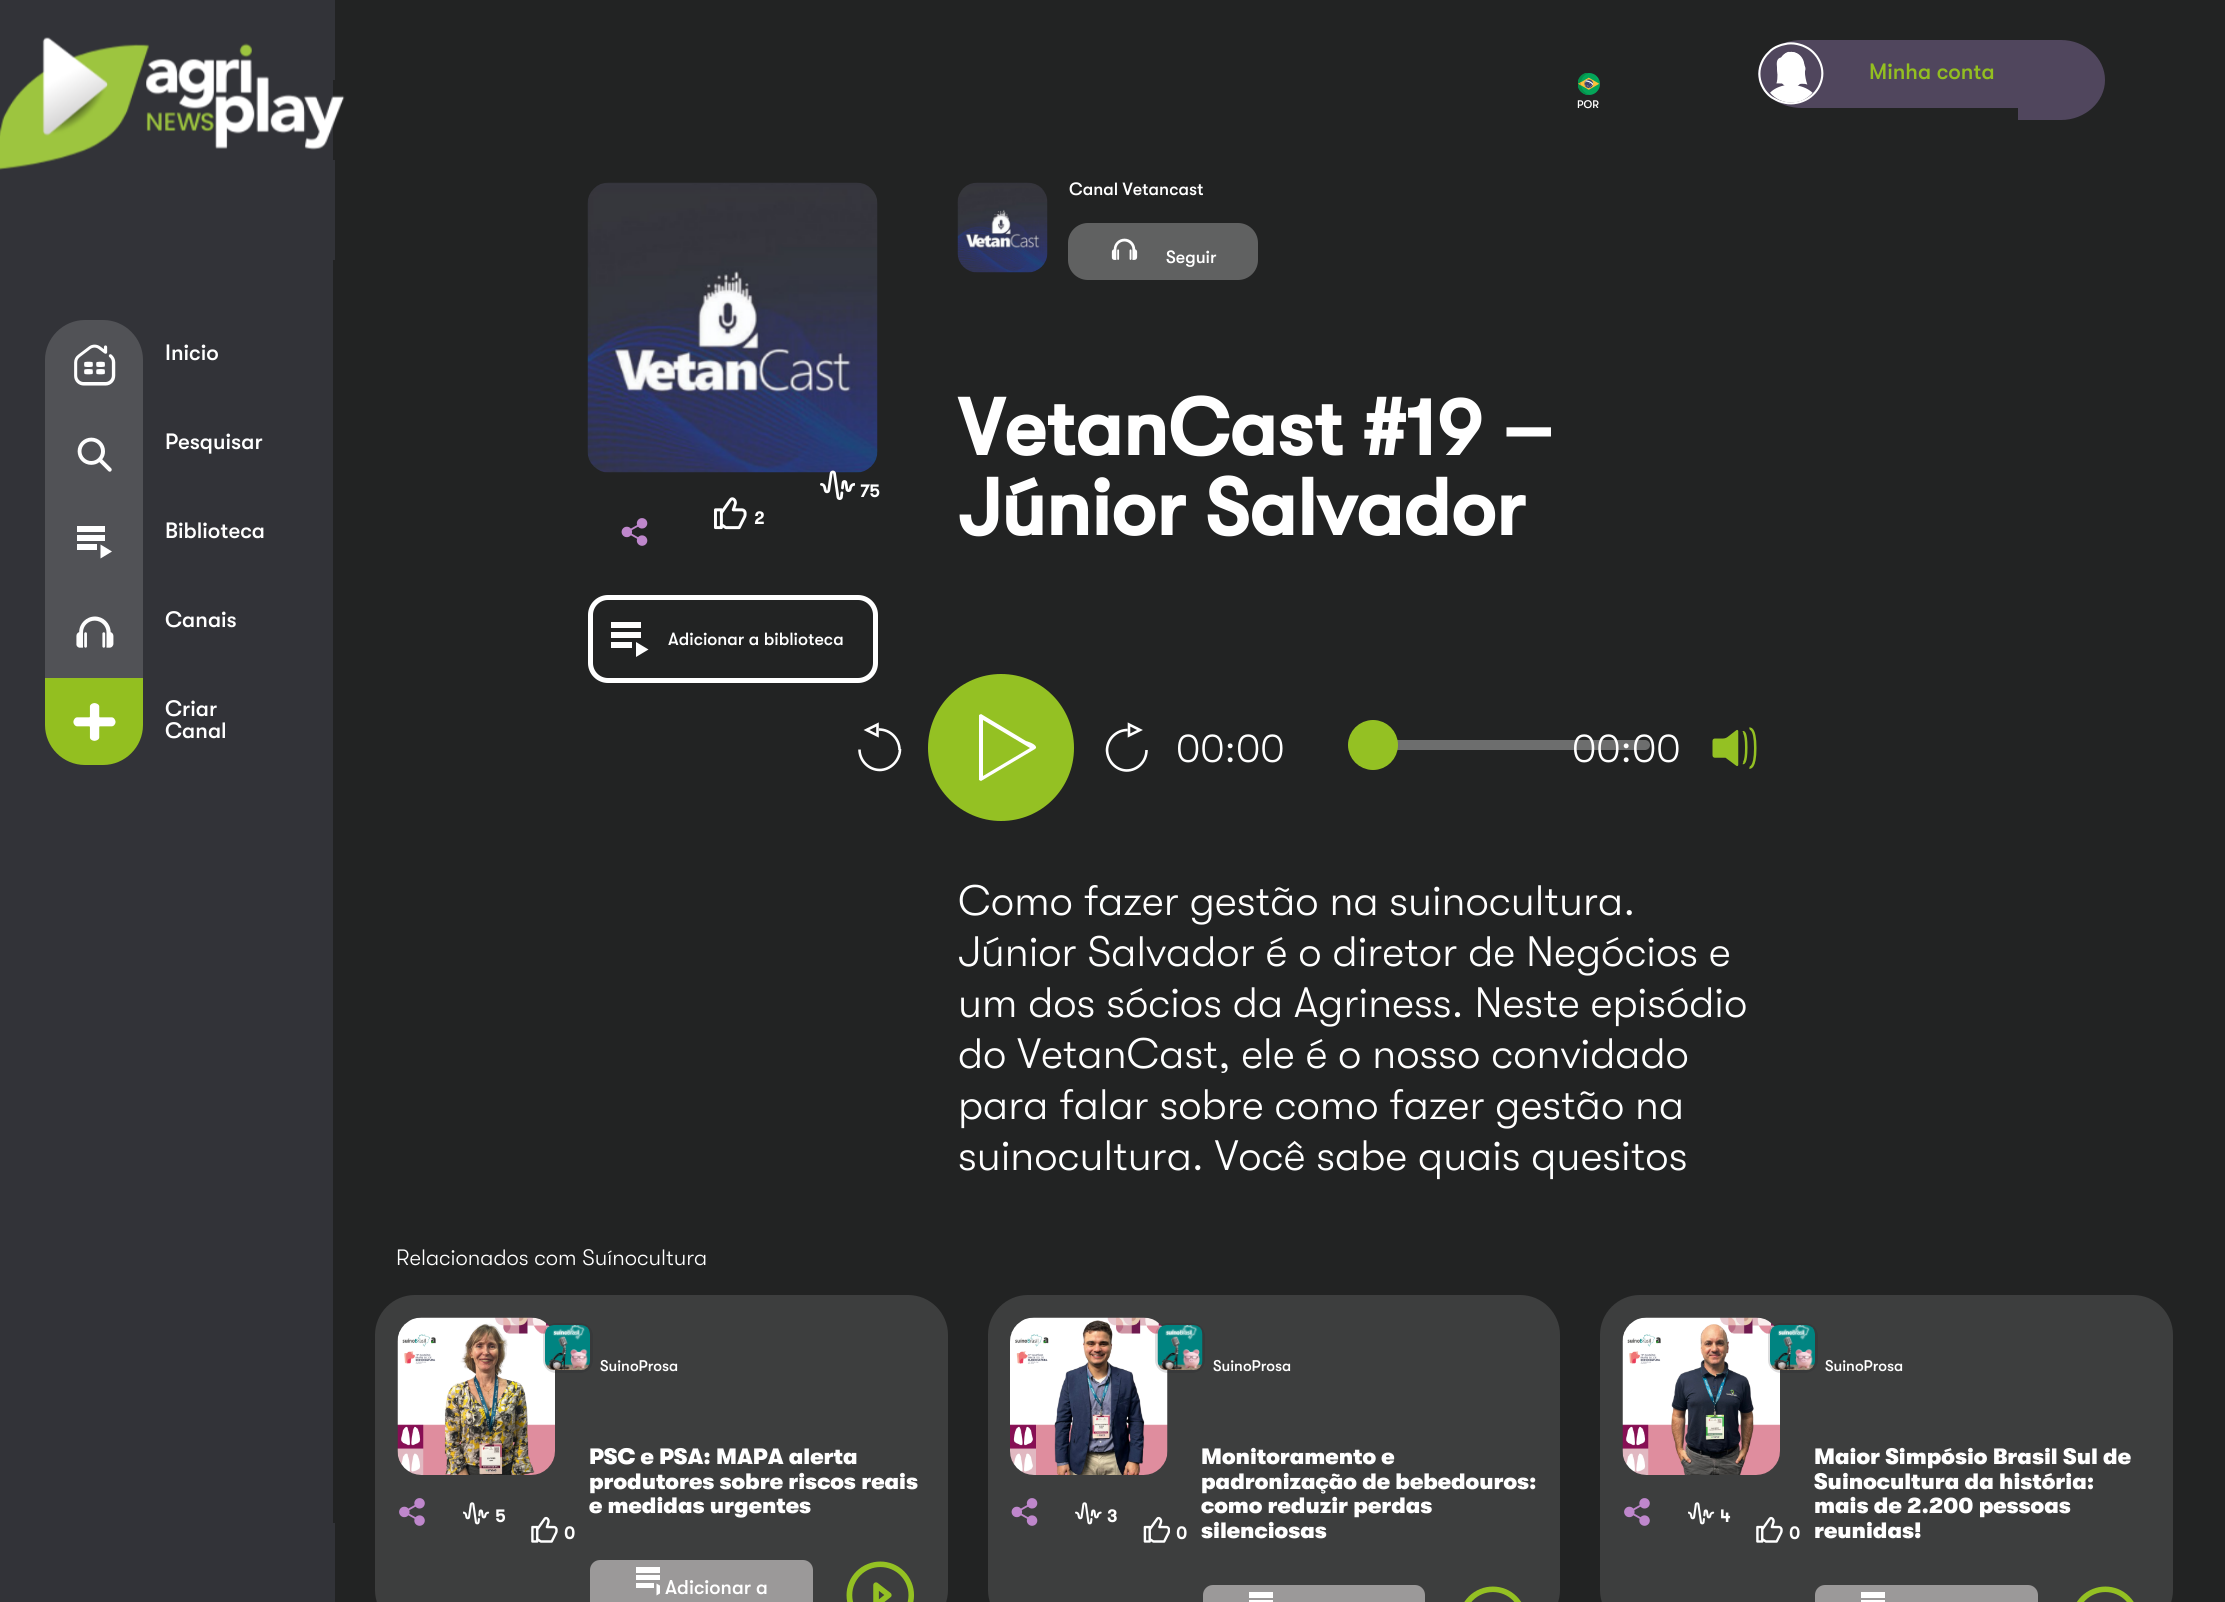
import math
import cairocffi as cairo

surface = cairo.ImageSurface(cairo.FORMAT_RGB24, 2225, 1602)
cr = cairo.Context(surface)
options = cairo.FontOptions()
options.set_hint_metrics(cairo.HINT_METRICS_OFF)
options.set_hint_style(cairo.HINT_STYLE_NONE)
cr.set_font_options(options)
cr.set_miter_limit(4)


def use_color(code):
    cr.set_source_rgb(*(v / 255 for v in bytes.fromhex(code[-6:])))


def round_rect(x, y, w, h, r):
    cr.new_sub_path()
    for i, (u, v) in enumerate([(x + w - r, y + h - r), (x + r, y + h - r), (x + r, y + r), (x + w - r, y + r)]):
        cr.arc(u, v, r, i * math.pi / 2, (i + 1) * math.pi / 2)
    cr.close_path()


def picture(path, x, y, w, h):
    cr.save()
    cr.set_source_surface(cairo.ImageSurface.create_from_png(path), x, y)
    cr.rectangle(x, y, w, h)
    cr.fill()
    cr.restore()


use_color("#222323")
cr.paint()
use_color("#50465d")
cr.new_path()
cr.move_to(1802, 40)
cr.line_to(1848, 40)
cr.line_to(1848, 108)
cr.line_to(1802, 108)
cr.curve_to(1778, 108, 1758, 92, 1758, 74)
cr.curve_to(1758, 55, 1778, 40, 1802, 40)
cr.close_path()
cr.fill()
picture("img1.png", 1758, 42, 66, 63)
cr.rectangle(1848, 40, 170, 68)
cr.fill()
cr.select_font_face("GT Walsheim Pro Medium")
cr.set_font_size(22.25)
use_color("#93bf20")
cr.move_to(1869, 79)
cr.show_text("Minha conta")
use_color("#50465d")
cr.new_path()
cr.move_to(2018, 40)
cr.line_to(2061, 40)
cr.curve_to(2085, 40, 2105, 58, 2105, 80)
cr.curve_to(2105, 102, 2085, 120, 2061, 120)
cr.line_to(2018, 120)
cr.close_path()
cr.fill()
picture("img2.png", 1578, 73, 22, 22)
cr.set_font_size(11)
use_color("#ffffff")
cr.move_to(1577, 108)
cr.show_text("POR")
use_color("#323338")
cr.rectangle(0, 0, 335, 1602)
cr.fill()
use_color("#222323")
cr.rectangle(333, 80, 2, 1443)
cr.fill()
use_color("#323338")
cr.rectangle(333, 160, 2, 100)
cr.fill()
picture("img3.png", 0, 37, 345, 133)
use_color("#515256")
cr.new_path()
cr.move_to(85, 320)
cr.line_to(103, 320)
cr.curve_to(125, 320, 143, 338, 143, 360)
cr.line_to(143, 410)
cr.line_to(45, 410)
cr.line_to(45, 360)
cr.curve_to(45, 338, 63, 320, 85, 320)
cr.close_path()
cr.fill()
picture("img4.png", 74, 344, 42, 42)
cr.set_font_size(22.25)
use_color("#ffffff")
cr.move_to(165, 360)
cr.show_text("Inicio")
use_color("#515256")
cr.rectangle(45, 410, 98, 268)
cr.fill()
picture("img5.png", 77, 437, 35, 35)
use_color("#ffffff")
cr.move_to(165, 449)
cr.show_text("Pesquisar")
cr.rectangle(77, 535, 28, 6)
cr.fill()
cr.rectangle(77, 526, 28, 6)
cr.fill()
cr.rectangle(77, 544, 20, 6)
cr.fill()
cr.new_path()
cr.move_to(100.5, 544.5)
cr.line_to(100.5, 558.5)
cr.line_to(112, 551.5)
cr.close_path()
cr.fill()
cr.move_to(165, 538)
cr.show_text("Biblioteca")
picture("img6.png", 76, 616, 38, 32)
cr.move_to(165, 627)
cr.show_text("Canais")
use_color("#93bf20")
cr.new_path()
cr.move_to(45, 678)
cr.line_to(143, 678)
cr.line_to(143, 725)
cr.curve_to(143, 747, 125, 765, 103, 765)
cr.line_to(85, 765)
cr.curve_to(63, 765, 45, 747, 45, 725)
cr.close_path()
cr.fill()
picture("img7.png", 73, 703, 43, 38)
use_color("#ffffff")
cr.move_to(165, 716)
cr.show_text("Criar")
cr.move_to(165, 738)
cr.show_text("Canal")
picture("img8.png", 587, 182, 291, 291)
picture("img9.png", 820, 470, 35, 30)
cr.select_font_face("GT Walsheim Pro", cairo.FONT_SLANT_NORMAL, cairo.FONT_WEIGHT_BOLD)
cr.set_font_size(17.75)
cr.move_to(860, 497)
cr.show_text("75")
picture("img10.png", 714, 497, 33, 33)
cr.move_to(754, 524)
cr.show_text("2")
picture("img11.png", 621, 518, 27, 28)
round_rect(590.5, 597.5, 285, 83, 17.5)
cr.set_line_width(5)
cr.stroke()
cr.rectangle(611, 632, 30, 6)
cr.fill()
cr.rectangle(611, 622, 30, 6)
cr.fill()
cr.rectangle(611, 642, 21, 6)
cr.fill()
cr.new_path()
cr.move_to(636, 642)
cr.line_to(636, 657)
cr.line_to(648.5, 649.5)
cr.close_path()
cr.fill()
cr.select_font_face("GT Walsheim Pro Medium")
cr.move_to(668, 645)
cr.show_text("Adicionar a biblioteca")
picture("img12.png", 957, 182, 91, 91)
cr.move_to(1069, 195)
cr.show_text("Canal Vetancast")
use_color("#606161")
round_rect(1068, 223, 190, 57, 20)
cr.fill()
picture("img13.png", 1111, 238, 27, 22)
use_color("#ffffff")
cr.move_to(1166, 263)
cr.show_text("Seguir")
cr.select_font_face("GT Walsheim Pro", cairo.FONT_SLANT_NORMAL, cairo.FONT_WEIGHT_BOLD)
cr.set_font_size(80)
cr.move_to(958, 455)
cr.show_text("VetanCast #19 –")
cr.move_to(958, 535)
cr.show_text("Júnior Salvador")
cr.new_path()
cr.move_to(877.5, 724.5)
cr.line_to(877.5, 735.5)
cr.line_to(866.5, 730)
cr.close_path()
cr.move_to(899.5, 750)
cr.curve_to(899.5, 739, 890.5, 729.5, 879, 729.5)
cr.move_to(879.5, 770)
cr.curve_to(890.5, 770, 900, 760.5, 900, 749)
cr.move_to(859.5, 749.5)
cr.curve_to(859.5, 760.5, 868.5, 770, 880, 770)
cr.set_line_width(2.6)
cr.stroke()
use_color("#94c123")
cr.new_path()
cr.move_to(1001, 674)
cr.curve_to(961, 674, 928, 707, 928, 748)
cr.curve_to(928, 788, 961, 821, 1001, 821)
cr.curve_to(1042, 821, 1074, 788, 1074, 748)
cr.curve_to(1074, 707, 1042, 674, 1001, 674)
cr.close_path()
cr.fill()
use_color("#ffffff")
cr.new_path()
cr.move_to(983, 720)
cr.line_to(983, 776)
cr.line_to(1030, 748)
cr.close_path()
cr.move_to(981, 781)
cr.line_to(979, 780)
cr.line_to(979, 779)
cr.line_to(979, 715)
cr.line_to(981, 714)
cr.line_to(1026, 741)
cr.curve_to(1026, 741, 1037, 744, 1036, 748)
cr.line_to(1035, 749)
cr.close_path()
cr.fill()
cr.new_path()
cr.move_to(1129, 724.5)
cr.line_to(1129, 735.5)
cr.line_to(1140, 730)
cr.close_path()
cr.move_to(1107, 750.5)
cr.curve_to(1107, 739, 1116.5, 730, 1127.5, 730)
cr.move_to(1127, 770.5)
cr.curve_to(1116, 770.5, 1107, 761, 1107, 749.5)
cr.move_to(1146.5, 750)
cr.curve_to(1146.5, 761.5, 1137.5, 770.5, 1126.5, 770.5)
cr.stroke()
cr.select_font_face("GT Walsheim Pro Light")
cr.set_font_size(40)
cr.move_to(1176, 762)
cr.show_text("00:00")
cr.move_to(1572, 762)
cr.show_text("00:00")
cr.set_source_rgba(1, 1, 1, 0.34)
round_rect(1368, 740, 282, 10, 5)
cr.fill()
use_color("#94c123")
cr.arc(1373, 745, 15, 0, 2 * math.pi)
cr.fill_preserve()
cr.set_line_width(20)
cr.stroke()
picture("img14.png", 1712, 727, 45, 42)
cr.set_font_size(42.5)
use_color("#ffffff")
cr.move_to(958, 915)
cr.show_text("Como fazer gestão na suinocultura.")
cr.move_to(958, 966)
cr.show_text("Júnior Salvador é o diretor de Negócios e")
cr.move_to(958, 1017)
cr.show_text("um dos sócios da Agriness. Neste episódio")
cr.move_to(958, 1068)
cr.show_text("do VetanCast, ele é o nosso convidado")
cr.move_to(958, 1119)
cr.show_text("para falar sobre como fazer gestão na")
cr.move_to(958, 1170)
cr.show_text("suinocultura. Você sabe quais quesitos")
cr.set_font_size(22.25)
cr.move_to(396, 1265)
cr.show_text("Relacionados com Suínocultura")
use_color("#3d3e3e")
round_rect(375, 1295, 573, 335, 40)
cr.fill()
picture("img15.png", 397, 1317, 158, 158)
picture("img16.png", 399, 1498, 26, 28)
picture("img17.png", 463, 1502, 27, 23)
cr.select_font_face("GT Walsheim Pro", cairo.FONT_SLANT_NORMAL, cairo.FONT_WEIGHT_BOLD)
cr.set_font_size(17.75)
use_color("#ffffff")
cr.move_to(495, 1522)
cr.show_text("5")
picture("img18.png", 531, 1516, 27, 27)
cr.move_to(564, 1539)
cr.show_text("0")
round_rect(544.5, 1324.5, 47, 47, 11.5)
cr.set_source_rgba(0.106, 0.122, 0.137, 0.15)
cr.set_line_width(3)
cr.stroke()
picture("img19.png", 545, 1325, 45, 45)
cr.select_font_face("GT Walsheim Pro Medium")
cr.set_font_size(15.5)
use_color("#ffffff")
cr.move_to(600, 1371)
cr.show_text("SuinoProsa")
cr.select_font_face("GT Walsheim Pro Black")
cr.set_font_size(22.25)
cr.move_to(589, 1464)
cr.show_text("PSC e PSA: MAPA alerta")
cr.move_to(589, 1489)
cr.show_text("produtores sobre riscos reais")
cr.move_to(589, 1513)
cr.show_text("e medidas urgentes")
use_color("#9b9999")
round_rect(590, 1560, 223, 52, 10)
cr.fill()
use_color("#ffffff")
cr.rectangle(636, 1567, 24, 6)
cr.fill()
cr.rectangle(636, 1575, 24, 5)
cr.fill()
cr.rectangle(636, 1583, 18, 5)
cr.fill()
cr.save()
cr.rectangle(630, 1560, 30, 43)
cr.clip()
cr.new_path()
cr.move_to(656.5, 1583.5)
cr.line_to(656.5, 1595.5)
cr.line_to(666.5, 1589.5)
cr.close_path()
cr.fill()
cr.restore()
cr.select_font_face("GT Walsheim Pro Medium")
cr.set_font_size(20)
cr.move_to(665, 1594)
cr.show_text("Adicionar a")
picture("img20.png", 846, 1561, 68, 41)
use_color("#3d3e3e")
round_rect(988, 1295, 572, 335, 40)
cr.fill()
picture("img21.png", 1010, 1317, 158, 158)
picture("img22.png", 1011, 1498, 27, 28)
picture("img23.png", 1075, 1502, 27, 23)
cr.select_font_face("GT Walsheim Pro", cairo.FONT_SLANT_NORMAL, cairo.FONT_WEIGHT_BOLD)
cr.set_font_size(17.75)
use_color("#ffffff")
cr.move_to(1107, 1522)
cr.show_text("3")
picture("img24.png", 1143, 1516, 27, 27)
cr.move_to(1176, 1539)
cr.show_text("0")
round_rect(1156.5, 1324.5, 47, 47, 11.5)
cr.set_source_rgba(0.106, 0.122, 0.137, 0.15)
cr.stroke()
picture("img25.png", 1157, 1325, 46, 45)
cr.select_font_face("GT Walsheim Pro Medium")
cr.set_font_size(15.5)
use_color("#ffffff")
cr.move_to(1213, 1371)
cr.show_text("SuinoProsa")
cr.select_font_face("GT Walsheim Pro Black")
cr.set_font_size(22.25)
cr.move_to(1201, 1464)
cr.show_text("Monitoramento e")
cr.move_to(1201, 1489)
cr.show_text("padronização de bebedouros:")
cr.move_to(1201, 1513)
cr.show_text("como reduzir perdas")
cr.move_to(1201, 1538)
cr.show_text("silenciosas")
use_color("#9b9999")
round_rect(1203, 1585, 222, 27, 10)
cr.fill()
use_color("#ffffff")
cr.rectangle(1249, 1592, 24, 6)
cr.fill()
cr.rectangle(1249, 1600, 24, 2)
cr.fill()
picture("img26.png", 1464, 1586, 58, 16)
use_color("#3d3e3e")
round_rect(1600, 1295, 573, 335, 40)
cr.fill()
picture("img27.png", 1622, 1317, 158, 158)
picture("img16.png", 1624, 1498, 26, 28)
picture("img17.png", 1688, 1502, 27, 23)
cr.select_font_face("GT Walsheim Pro", cairo.FONT_SLANT_NORMAL, cairo.FONT_WEIGHT_BOLD)
cr.set_font_size(17.75)
use_color("#ffffff")
cr.move_to(1720, 1522)
cr.show_text("4")
picture("img18.png", 1756, 1516, 27, 27)
cr.move_to(1789, 1539)
cr.show_text("0")
round_rect(1769.5, 1324.5, 47, 47, 11.5)
cr.set_source_rgba(0.106, 0.122, 0.137, 0.15)
cr.stroke()
picture("img28.png", 1770, 1325, 45, 45)
cr.select_font_face("GT Walsheim Pro Medium")
cr.set_font_size(15.5)
use_color("#ffffff")
cr.move_to(1825, 1371)
cr.show_text("SuinoProsa")
cr.select_font_face("GT Walsheim Pro Black")
cr.set_font_size(22.25)
cr.move_to(1814, 1464)
cr.show_text("Maior Simpósio Brasil Sul de")
cr.move_to(1814, 1489)
cr.show_text("Suinocultura da história:")
cr.move_to(1814, 1513)
cr.show_text("mais de 2.200 pessoas")
cr.move_to(1814, 1538)
cr.show_text("reunidas!")
use_color("#9b9999")
round_rect(1815, 1585, 223, 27, 10)
cr.fill()
use_color("#ffffff")
cr.rectangle(1861, 1592, 24, 6)
cr.fill()
cr.rectangle(1861, 1600, 24, 2)
cr.fill()
picture("img29.png", 2077, 1586, 57, 16)
surface.write_to_png("result.png")
